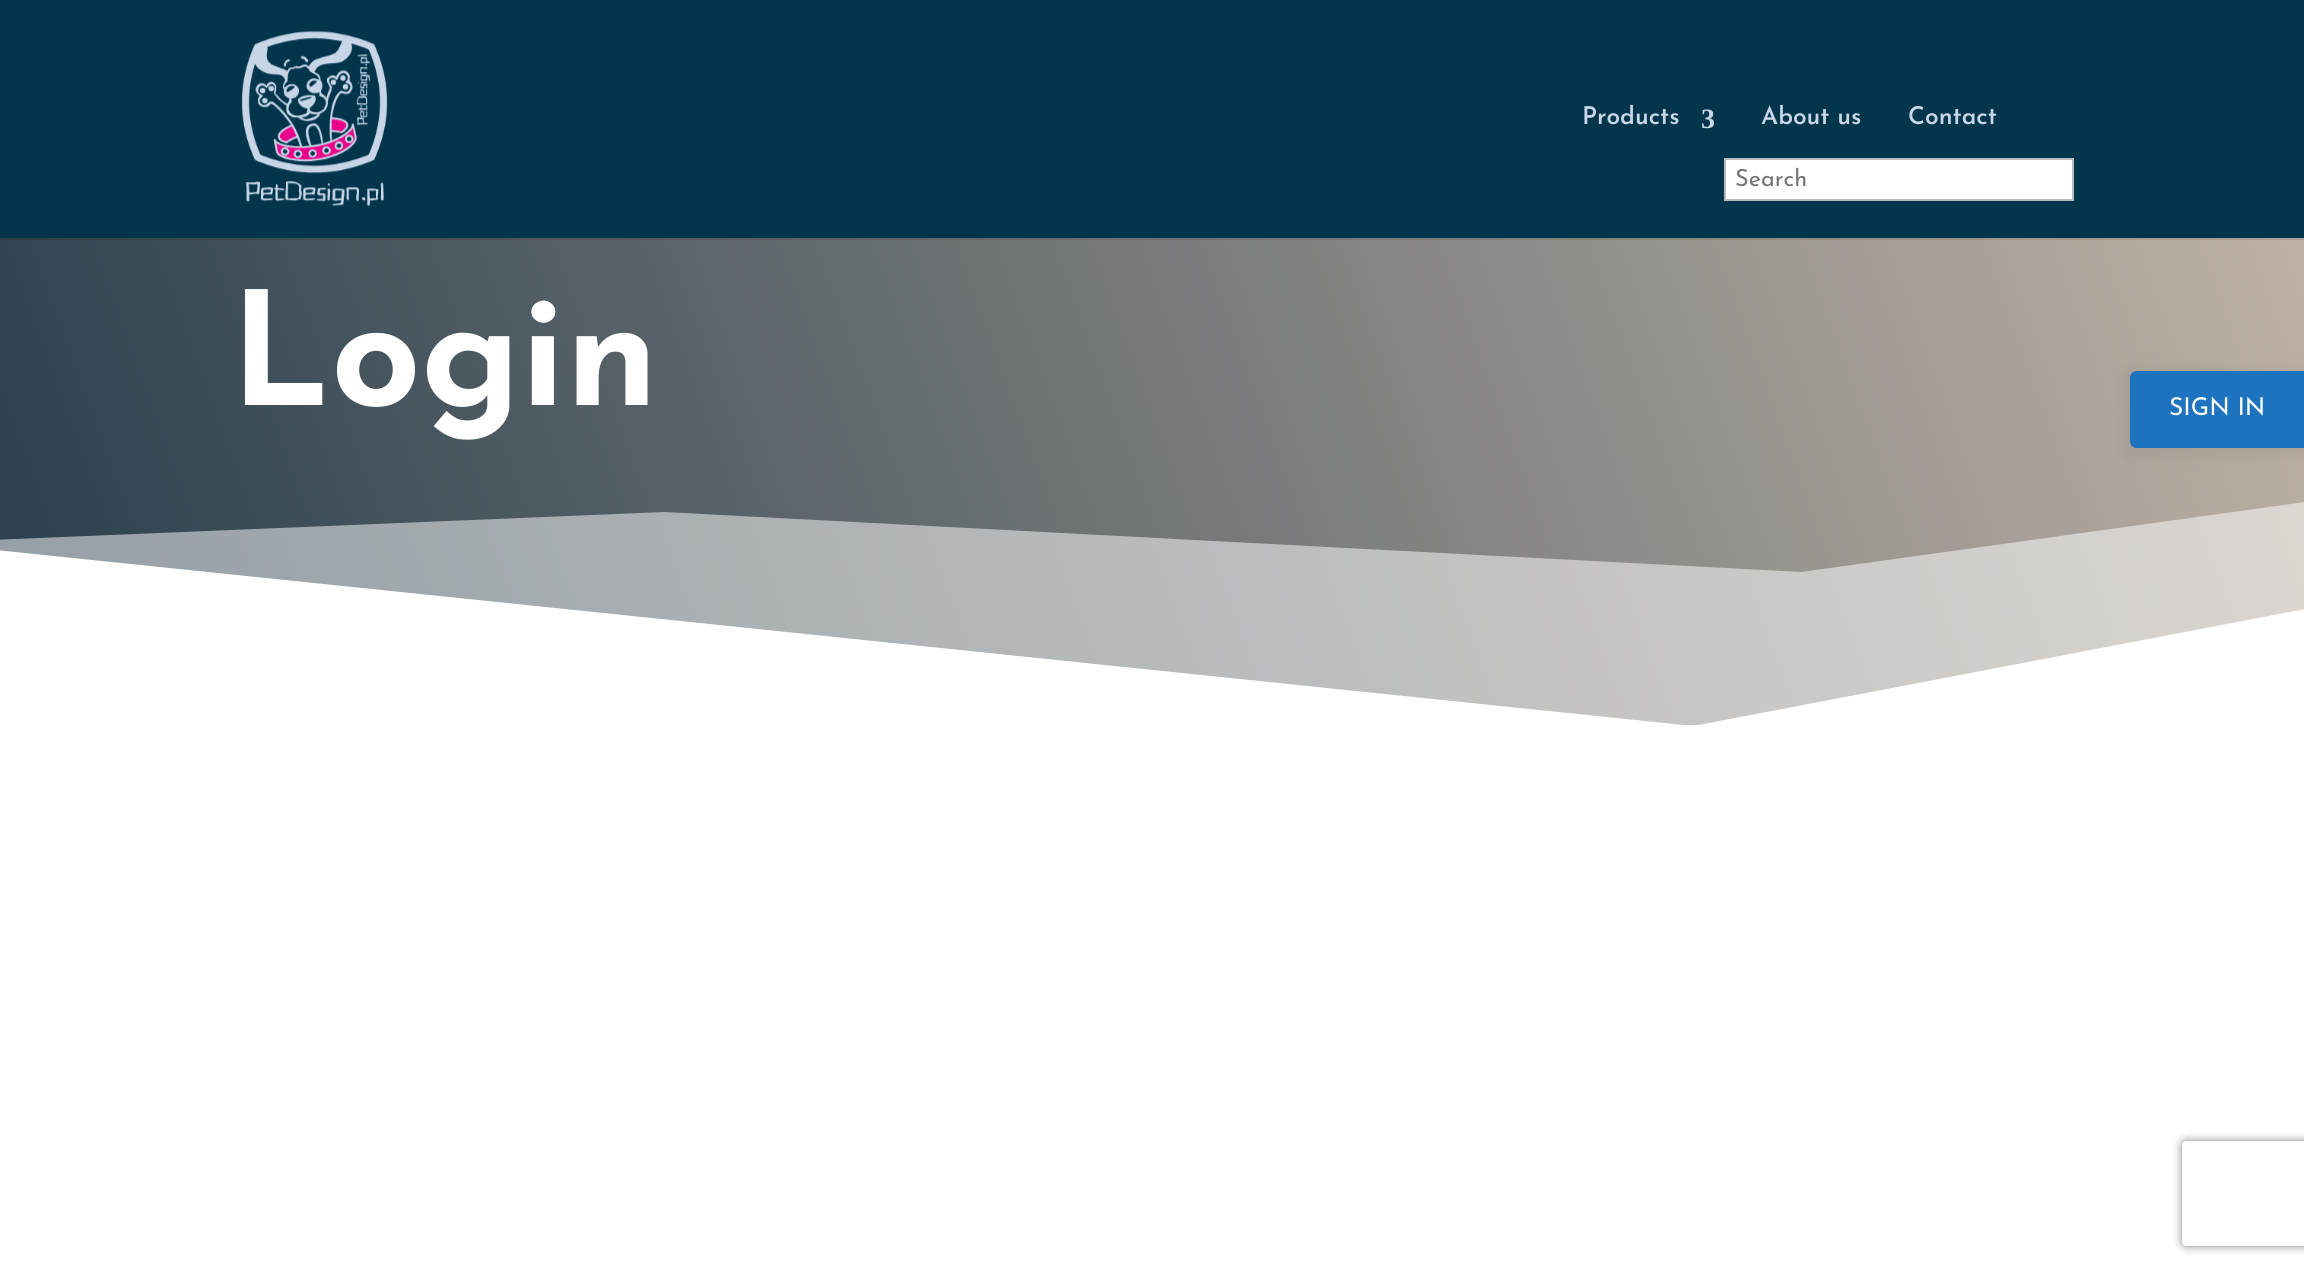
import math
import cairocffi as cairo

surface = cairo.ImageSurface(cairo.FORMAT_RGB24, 2304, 1269)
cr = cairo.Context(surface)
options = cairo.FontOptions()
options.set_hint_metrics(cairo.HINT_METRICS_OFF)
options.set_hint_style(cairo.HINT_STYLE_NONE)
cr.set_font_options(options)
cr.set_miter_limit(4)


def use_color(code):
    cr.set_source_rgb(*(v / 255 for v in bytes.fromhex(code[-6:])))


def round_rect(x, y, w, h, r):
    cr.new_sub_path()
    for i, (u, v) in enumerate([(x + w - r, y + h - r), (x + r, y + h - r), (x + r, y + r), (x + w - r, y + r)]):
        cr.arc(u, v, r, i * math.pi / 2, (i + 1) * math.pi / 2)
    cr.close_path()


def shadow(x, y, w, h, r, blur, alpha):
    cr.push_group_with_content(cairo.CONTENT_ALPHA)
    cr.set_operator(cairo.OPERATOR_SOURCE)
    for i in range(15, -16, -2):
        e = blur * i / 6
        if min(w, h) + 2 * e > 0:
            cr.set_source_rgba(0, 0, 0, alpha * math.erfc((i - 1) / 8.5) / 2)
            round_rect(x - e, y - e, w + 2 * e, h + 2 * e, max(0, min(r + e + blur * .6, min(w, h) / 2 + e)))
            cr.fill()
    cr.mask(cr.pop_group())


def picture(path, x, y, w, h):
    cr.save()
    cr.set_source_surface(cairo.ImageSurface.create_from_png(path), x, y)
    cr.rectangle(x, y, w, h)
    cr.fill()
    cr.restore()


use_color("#ffffff")
cr.paint()
gradient = cairo.LinearGradient(41, 837, 2264, 28)
gradient.add_color_stop_rgba(0, 0.157, 0.239, 0.294, 1)
gradient.add_color_stop_rgba(1, 0.753, 0.702, 0.655, 1)
cr.set_source(gradient)
cr.rectangle(0, 238, 2304, 487)
cr.fill()
cr.set_source_rgba(0, 0, 0, 0.1)
cr.new_path()
cr.move_to(0, 238)
cr.line_to(0, 240)
cr.line_to(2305, 240)
cr.line_to(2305, 2)
cr.line_to(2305, 238)
cr.close_path()
cr.fill()
use_color("#00354c")
cr.rectangle(0, 0, 2304, 238)
cr.fill()
picture("img1.png", 241, 31, 147, 176)
cr.select_font_face("Josefin Sans SemiBold")
cr.set_font_size(24.5)
use_color("#c8d6e7")
cr.move_to(1582, 124)
cr.show_text("Products")
cr.select_font_face("Liberation Serif", cairo.FONT_SLANT_NORMAL, cairo.FONT_WEIGHT_BOLD)
cr.set_font_size(28)
cr.move_to(1701, 128)
cr.show_text("3")
cr.select_font_face("Josefin Sans SemiBold")
cr.set_font_size(24.5)
cr.move_to(1761, 124)
cr.show_text("About us")
cr.move_to(1908, 124)
cr.show_text("Contact")
use_color("#ffffff")
cr.rectangle(1725, 159, 348, 41)
cr.fill_preserve()
use_color("#bbbbbb")
cr.stroke()
cr.select_font_face("Josefin Sans")
cr.set_font_size(23.5)
use_color("#757575")
cr.move_to(1735, 186)
cr.show_text("Search")
cr.select_font_face("Josefin Sans", cairo.FONT_SLANT_NORMAL, cairo.FONT_WEIGHT_BOLD)
cr.set_font_size(157.5)
use_color("#ffffff")
cr.move_to(230, 405)
cr.show_text("Login")
cr.set_source_rgba(1, 1, 1, 0.5)
cr.new_path()
cr.move_to(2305, 502)
cr.line_to(1801, 572)
cr.line_to(664, 512)
cr.line_to(-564, 563)
cr.line_to(-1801, 467)
cr.line_to(-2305, 502)
cr.line_to(-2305, 726)
cr.line_to(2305, 726)
cr.close_path()
cr.fill()
use_color("#ffffff")
cr.new_path()
cr.move_to(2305, 726)
cr.line_to(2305, 609)
cr.line_to(1693, 726)
cr.line_to(-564, 492)
cr.line_to(-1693, 511)
cr.line_to(-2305, 609)
cr.line_to(-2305, 726)
cr.close_path()
cr.fill()
use_color("#000000")
shadow(2126, 371, 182, 84, 0, 9, 0.07)
use_color("#1e73be")
cr.new_path()
cr.move_to(2137, 371)
cr.line_to(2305, 371)
cr.line_to(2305, 448)
cr.line_to(2137, 448)
cr.curve_to(2133, 448, 2130, 445, 2130, 441)
cr.line_to(2130, 378)
cr.curve_to(2130, 374, 2133, 371, 2137, 371)
cr.close_path()
cr.fill()
cr.select_font_face("Josefin Sans")
cr.set_font_size(24.5)
use_color("#ffffff")
cr.move_to(2169, 415)
cr.show_text("SIGN IN")
cr.save()
cr.set_fill_rule(cairo.FILL_RULE_EVEN_ODD)
cr.new_path()
cr.move_to(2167, 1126)
cr.line_to(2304, 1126)
cr.line_to(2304, 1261)
cr.line_to(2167, 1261)
cr.close_path()
cr.move_to(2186, 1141)
cr.line_to(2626, 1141)
cr.curve_to(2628, 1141, 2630, 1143, 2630, 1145)
cr.line_to(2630, 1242)
cr.curve_to(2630, 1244, 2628, 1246, 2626, 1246)
cr.line_to(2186, 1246)
cr.curve_to(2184, 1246, 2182, 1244, 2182, 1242)
cr.line_to(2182, 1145)
cr.curve_to(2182, 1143, 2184, 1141, 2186, 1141)
cr.close_path()
cr.clip()
use_color("#808080")
shadow(2182, 1141, 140, 105, 4, 4.5, 1)
cr.restore()
surface.write_to_png("result.png")
